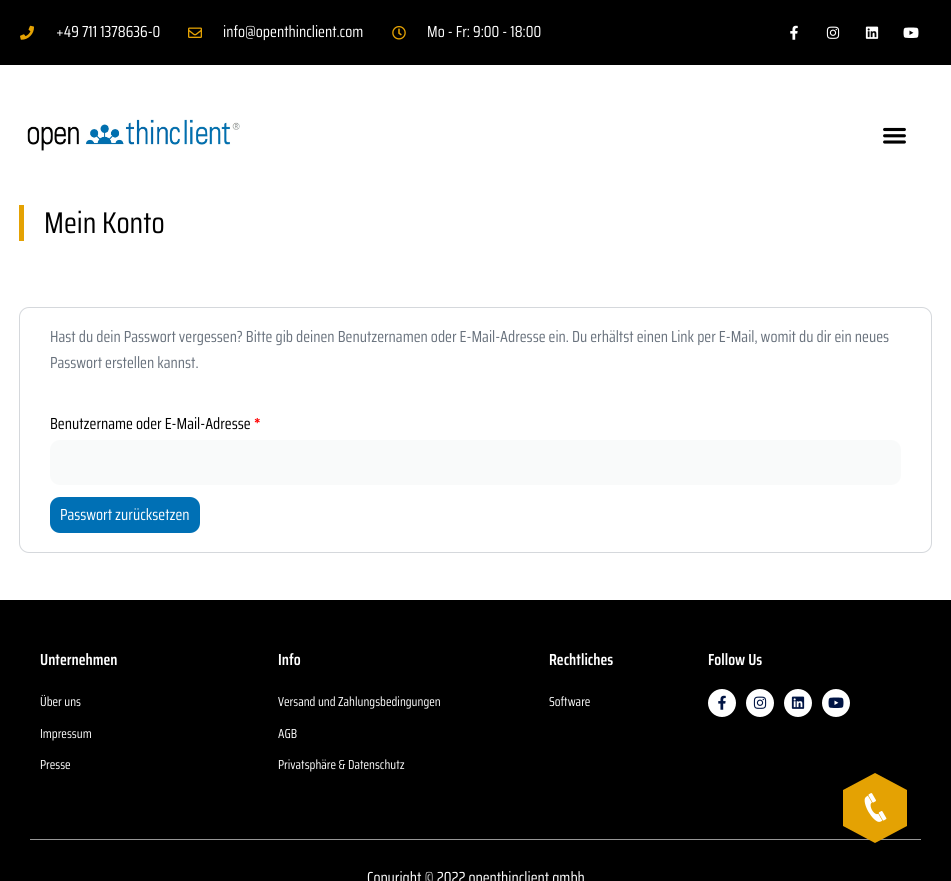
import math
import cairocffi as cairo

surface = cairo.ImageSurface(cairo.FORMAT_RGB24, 951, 881)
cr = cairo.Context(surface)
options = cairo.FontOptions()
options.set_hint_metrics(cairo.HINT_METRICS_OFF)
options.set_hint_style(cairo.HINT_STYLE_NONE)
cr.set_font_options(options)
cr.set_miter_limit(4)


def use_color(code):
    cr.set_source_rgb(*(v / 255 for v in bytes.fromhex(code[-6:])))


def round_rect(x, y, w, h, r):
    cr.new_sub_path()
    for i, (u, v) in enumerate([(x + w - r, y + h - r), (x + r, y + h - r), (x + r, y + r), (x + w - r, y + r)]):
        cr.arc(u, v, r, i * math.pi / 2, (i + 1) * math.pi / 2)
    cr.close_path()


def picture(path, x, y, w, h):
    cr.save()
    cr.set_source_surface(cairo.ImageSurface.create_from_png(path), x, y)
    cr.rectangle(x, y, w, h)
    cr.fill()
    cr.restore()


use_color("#ffffff")
cr.paint()
use_color("#000000")
cr.rectangle(0, 0, 951, 65)
cr.fill()
picture("img1.png", 20, 25, 14, 15)
cr.select_font_face("Saira Condensed")
cr.set_font_size(16)
use_color("#ffffff")
cr.move_to(56, 37)
cr.show_text("+49 711 1378636-0")
picture("img2.png", 188, 27, 14, 11)
cr.move_to(223, 37)
cr.show_text("info@openthinclient.com")
picture("img3.png", 392, 26, 14, 14)
cr.move_to(427, 37)
cr.show_text("Mo - Fr: 9:00 - 18:00")
picture("img4.png", 790, 25, 8, 15)
picture("img5.png", 826, 26, 14, 13)
picture("img6.png", 865, 26, 14, 13)
picture("img7.png", 903, 27, 16, 11)
picture("img8.png", 27, 119, 213, 32)
picture("img9.png", 883, 127, 23, 17)
use_color("#e4a203")
cr.rectangle(19, 205, 5, 36)
cr.fill()
cr.set_font_size(30)
use_color("#000000")
cr.move_to(44, 233)
cr.show_text("Mein Konto")
round_rect(19.5, 307.5, 912, 245, 9.5)
use_color("#d5d8dc")
cr.set_line_width(1)
cr.stroke()
cr.set_font_size(16)
use_color("#69727d")
cr.move_to(50, 342)
cr.show_text("Hast du dein Passwort vergessen? Bitte gib deinen Benutzernamen oder E-Mail-Adresse ein. Du erhältst einen Link per E-Mail, womit du dir ein neues")
cr.move_to(50, 368)
cr.show_text("Passwort erstellen kannst.")
use_color("#000000")
cr.move_to(50, 429)
cr.show_text("Benutzername oder E-Mail-Adresse")
cr.select_font_face("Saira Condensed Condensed", cairo.FONT_SLANT_NORMAL, cairo.FONT_WEIGHT_BOLD)
use_color("#ff0000")
cr.move_to(254, 429)
cr.show_text("*")
use_color("#f9fafa")
round_rect(50, 440, 851, 45, 10)
cr.fill()
use_color("#0070b5")
round_rect(50, 497, 150, 36, 10)
cr.fill()
cr.select_font_face("Saira Condensed")
use_color("#ffffff")
cr.move_to(60, 520)
cr.show_text("Passwort zurücksetzen")
use_color("#000000")
cr.rectangle(0, 600, 951, 281)
cr.fill()
cr.select_font_face("Saira Condensed SemiBold")
use_color("#ffffff")
cr.move_to(40, 665)
cr.show_text("Unternehmen")
cr.select_font_face("Saira Condensed")
cr.set_font_size(13)
cr.move_to(40, 706)
cr.show_text("Über uns")
cr.move_to(40, 738)
cr.show_text("Impressum")
cr.move_to(40, 769)
cr.show_text("Presse")
cr.select_font_face("Saira Condensed SemiBold")
cr.set_font_size(16)
cr.move_to(278, 665)
cr.show_text("Info")
cr.select_font_face("Saira Condensed")
cr.set_font_size(13)
cr.move_to(278, 706)
cr.show_text("Versand und Zahlungsbedingungen")
cr.move_to(278, 738)
cr.show_text("AGB")
cr.move_to(278, 769)
cr.show_text("Privatsphäre & Datenschutz")
cr.select_font_face("Saira Condensed SemiBold")
cr.set_font_size(16)
cr.move_to(549, 665)
cr.show_text("Rechtliches")
cr.select_font_face("Saira Condensed")
cr.set_font_size(13)
cr.move_to(549, 706)
cr.show_text("Software")
cr.select_font_face("Saira Condensed SemiBold")
cr.set_font_size(16)
cr.move_to(708, 665)
cr.show_text("Follow Us")
cr.new_path()
cr.arc(722, 703, 14, 0, 2 * math.pi)
cr.fill()
picture("img10.png", 718, 695, 8, 15)
cr.arc(760, 703, 14, 0, 2 * math.pi)
cr.fill()
picture("img11.png", 753, 696, 14, 13)
cr.arc(798, 703, 14, 0, 2 * math.pi)
cr.fill()
picture("img12.png", 791, 696, 14, 13)
cr.arc(836, 703, 14, 0, 2 * math.pi)
cr.fill()
picture("img13.png", 828, 697, 16, 11)
use_color("#969696")
cr.rectangle(30, 839, 891, 1)
cr.fill()
cr.select_font_face("Saira Condensed")
use_color("#ffffff")
cr.move_to(367, 883)
cr.show_text("Copyright © 2022 openthinclient gmbh")
use_color("#e4a203")
cr.new_path()
cr.move_to(875, 773)
cr.line_to(843, 790)
cr.line_to(843, 826)
cr.line_to(875, 843)
cr.line_to(907, 826)
cr.line_to(907, 790)
cr.close_path()
cr.fill()
picture("img14.png", 864, 793, 23, 29)
surface.write_to_png("result.png")
